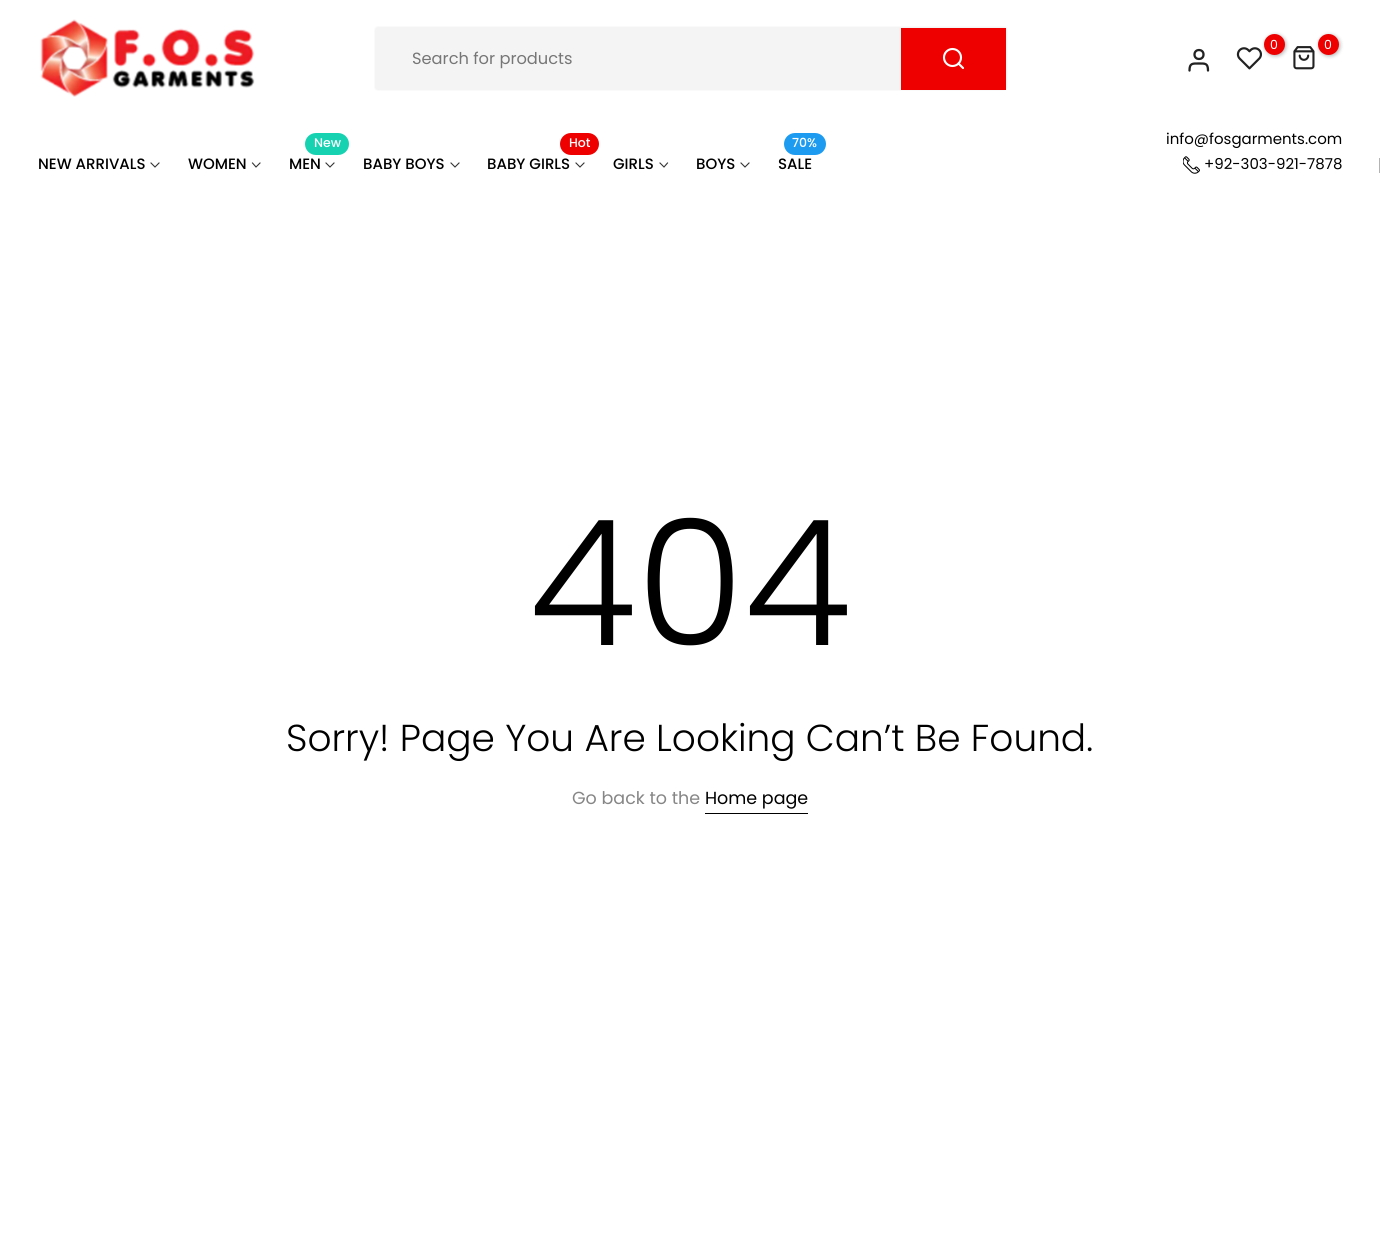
import math
import cairocffi as cairo

surface = cairo.ImageSurface(cairo.FORMAT_RGB24, 1380, 1250)
cr = cairo.Context(surface)
options = cairo.FontOptions()
options.set_hint_metrics(cairo.HINT_METRICS_OFF)
options.set_hint_style(cairo.HINT_STYLE_NONE)
cr.set_font_options(options)
cr.set_miter_limit(4)


def use_color(code):
    cr.set_source_rgb(*(v / 255 for v in bytes.fromhex(code[-6:])))


def round_rect(x, y, w, h, r):
    cr.new_sub_path()
    for i, (u, v) in enumerate([(x + w - r, y + h - r), (x + r, y + h - r), (x + r, y + r), (x + w - r, y + r)]):
        cr.arc(u, v, r, i * math.pi / 2, (i + 1) * math.pi / 2)
    cr.close_path()


def shadow(x, y, w, h, r, blur, alpha):
    cr.push_group_with_content(cairo.CONTENT_ALPHA)
    cr.set_operator(cairo.OPERATOR_SOURCE)
    for i in range(15, -16, -2):
        e = blur * i / 6
        if min(w, h) + 2 * e > 0:
            cr.set_source_rgba(0, 0, 0, alpha * math.erfc((i - 1) / 8.5) / 2)
            round_rect(x - e, y - e, w + 2 * e, h + 2 * e, max(0, min(r + e + blur * .6, min(w, h) / 2 + e)))
            cr.fill()
    cr.mask(cr.pop_group())


def picture(path, x, y, w, h):
    cr.save()
    cr.set_source_surface(cairo.ImageSurface.create_from_png(path), x, y)
    cr.rectangle(x, y, w, h)
    cr.fill()
    cr.restore()


use_color("#ffffff")
cr.paint()
picture("img1.png", 40, 19, 215, 78)
picture("img2.png", 1236, 47, 26, 23)
use_color("#000000")
shadow(1265, 35, 21, 21, 10.5, 2, 0.3)
use_color("#ee0000")
cr.arc(1274.5, 44.5, 10.5, 0, 2 * math.pi)
cr.fill()
cr.select_font_face("Poppins")
cr.set_font_size(12.5)
use_color("#ffffff")
cr.move_to(1270, 49)
cr.show_text("0")
picture("img3.png", 1293, 46, 22, 24)
use_color("#000000")
shadow(1319, 35, 21, 21, 10.5, 2, 0.3)
use_color("#ee0000")
cr.arc(1328.5, 44.5, 10.5, 0, 2 * math.pi)
cr.fill()
use_color("#ffffff")
cr.move_to(1324, 49)
cr.show_text("0")
cr.new_path()
cr.arc(1199, 54.5, 4.5, 0, 2 * math.pi)
use_color("#222222")
cr.set_line_width(2.3)
cr.stroke()
cr.new_path()
cr.move_to(1208, 70.5)
cr.curve_to(1208, 63, 1205, 63.5, 1199, 63.5)
cr.curve_to(1192.5, 63.5, 1189.5, 63, 1189.5, 70.5)
cr.set_line_cap(cairo.LINE_CAP_ROUND)
cr.set_line_join(cairo.LINE_JOIN_ROUND)
cr.stroke()
use_color("#f4f4f4")
round_rect(374.5, 26.5, 633, 64, 3.5)
cr.fill_preserve()
use_color("#fafafa")
cr.set_line_width(1)
cr.set_line_cap(cairo.LINE_CAP_BUTT)
cr.set_line_join(cairo.LINE_JOIN_MITER)
cr.stroke()
cr.set_font_size(16.25)
use_color("#767676")
cr.move_to(412, 64)
cr.show_text("Search for products")
use_color("#ee0000")
cr.rectangle(901, 28, 105, 62)
cr.fill()
cr.arc(952.5, 57.5, 8.5, 0, 2 * math.pi)
use_color("#ffffff")
cr.set_line_width(2.1)
cr.stroke()
cr.new_path()
cr.move_to(963, 68)
cr.line_to(958.5, 63.5)
cr.set_line_cap(cairo.LINE_CAP_ROUND)
cr.set_line_join(cairo.LINE_JOIN_ROUND)
cr.stroke()
cr.select_font_face("Poppins Medium")
cr.set_font_size(15)
use_color("#000000")
cr.move_to(38, 169)
cr.show_text("NEW ARRIVALS")
cr.new_path()
cr.move_to(159, 163)
cr.line_to(155, 167)
cr.line_to(151, 163)
use_color("#333333")
cr.set_line_width(1.1)
cr.set_line_cap(cairo.LINE_CAP_SQUARE)
cr.set_line_join(cairo.LINE_JOIN_MITER)
cr.stroke()
use_color("#000000")
cr.move_to(188, 169)
cr.show_text("WOMEN")
cr.new_path()
cr.move_to(260, 163)
cr.line_to(256, 167)
cr.line_to(252.5, 163)
use_color("#333333")
cr.stroke()
use_color("#16d2b1")
round_rect(305, 133, 44, 22, 11)
cr.fill()
cr.set_font_size(12.5)
use_color("#ffffff")
cr.move_to(314, 147)
cr.show_text("New")
cr.set_font_size(15)
use_color("#000000")
cr.move_to(289, 169)
cr.show_text("MEN")
cr.new_path()
cr.move_to(334, 163)
cr.line_to(330, 167)
cr.line_to(326, 163)
use_color("#333333")
cr.stroke()
use_color("#000000")
cr.move_to(363, 169)
cr.show_text("BABY BOYS")
cr.new_path()
cr.move_to(459, 163)
cr.line_to(455, 167)
cr.line_to(451, 163)
use_color("#333333")
cr.stroke()
use_color("#ee0000")
round_rect(560, 133, 39, 22, 11)
cr.fill()
cr.set_font_size(12.5)
use_color("#ffffff")
cr.move_to(569, 147)
cr.show_text("Hot")
cr.set_font_size(15)
use_color("#000000")
cr.move_to(487, 169)
cr.show_text("BABY GIRLS")
cr.new_path()
cr.move_to(584, 163)
cr.line_to(580, 167)
cr.line_to(576, 163)
use_color("#333333")
cr.stroke()
use_color("#000000")
cr.move_to(613, 169)
cr.show_text("GIRLS")
cr.new_path()
cr.move_to(667.5, 163)
cr.line_to(664, 167)
cr.line_to(660, 163)
use_color("#333333")
cr.stroke()
use_color("#000000")
cr.move_to(696, 169)
cr.show_text("BOYS")
cr.new_path()
cr.move_to(749, 163)
cr.line_to(745, 167)
cr.line_to(741, 163)
use_color("#333333")
cr.stroke()
use_color("#1d9bf1")
round_rect(784, 133, 42, 22, 11)
cr.fill()
cr.set_font_size(12.5)
use_color("#ffffff")
cr.move_to(792, 147)
cr.show_text("70%")
cr.set_font_size(15)
use_color("#000000")
cr.move_to(778, 169)
cr.show_text("SALE")
cr.select_font_face("Poppins")
cr.move_to(1166, 144)
cr.show_text("info@fosgarments.com")
use_color("#b3b3b3")
cr.rectangle(1379, 158, 1, 15)
cr.fill()
picture("img4.png", 1183, 156, 17, 18)
use_color("#000000")
cr.move_to(1204, 169)
cr.show_text("+92-303-921-7878")
cr.select_font_face("Poppins Light")
cr.set_font_size(175)
cr.move_to(529, 645)
cr.show_text("404")
cr.set_font_size(37.5)
cr.move_to(286, 751)
cr.show_text("Sorry! Page You Are Looking Can’t Be Found.")
cr.select_font_face("Poppins")
cr.set_font_size(17.5)
use_color("#868686")
cr.move_to(572, 804)
cr.show_text("Go back to the")
use_color("#000000")
cr.move_to(705, 804)
cr.show_text("Home page")
cr.rectangle(705, 813, 103, 1)
cr.fill()
surface.write_to_png("result.png")
